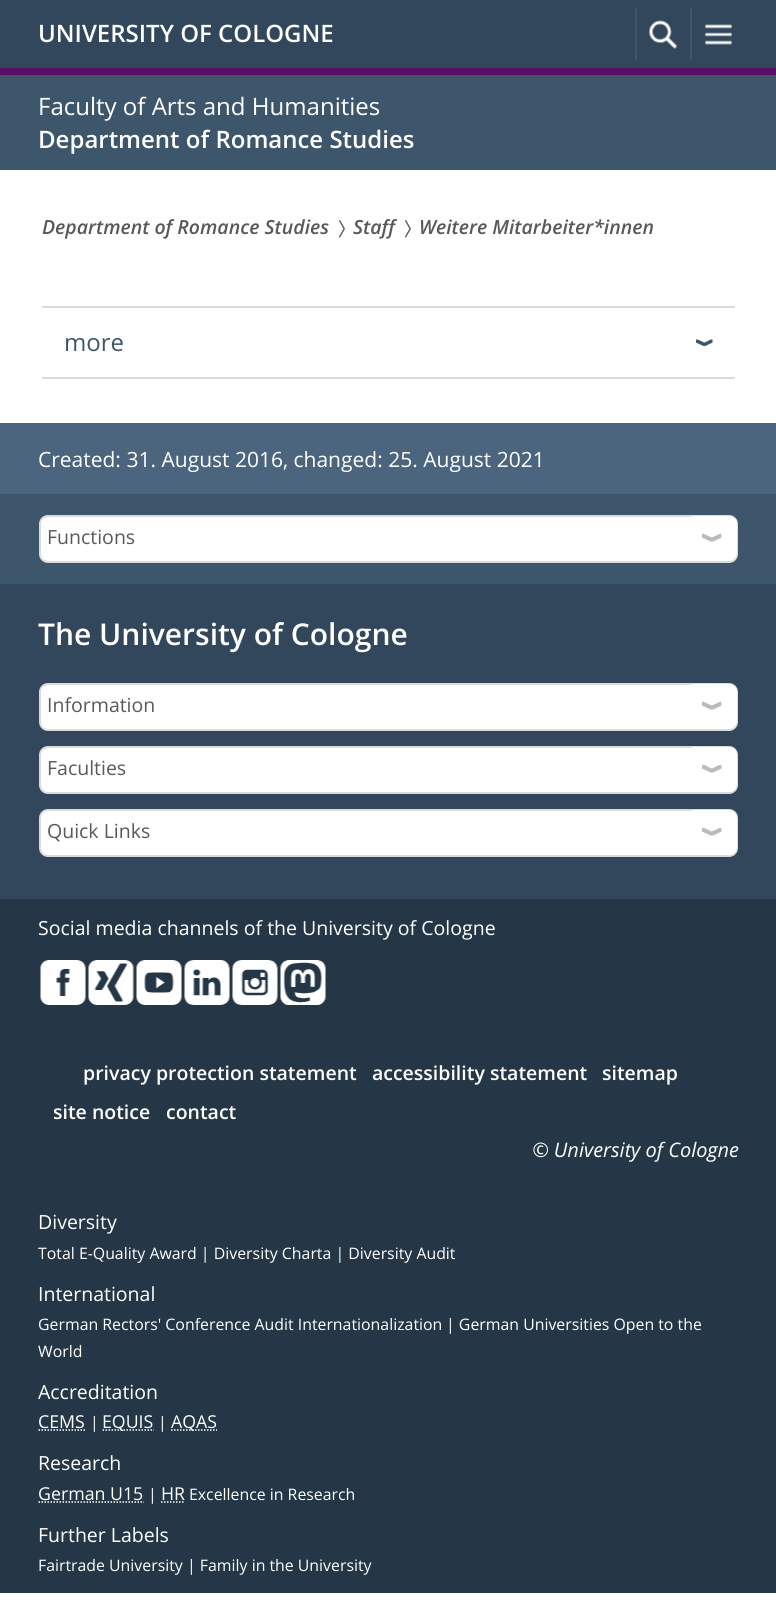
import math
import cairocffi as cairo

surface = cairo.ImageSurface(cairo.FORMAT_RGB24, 776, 1615)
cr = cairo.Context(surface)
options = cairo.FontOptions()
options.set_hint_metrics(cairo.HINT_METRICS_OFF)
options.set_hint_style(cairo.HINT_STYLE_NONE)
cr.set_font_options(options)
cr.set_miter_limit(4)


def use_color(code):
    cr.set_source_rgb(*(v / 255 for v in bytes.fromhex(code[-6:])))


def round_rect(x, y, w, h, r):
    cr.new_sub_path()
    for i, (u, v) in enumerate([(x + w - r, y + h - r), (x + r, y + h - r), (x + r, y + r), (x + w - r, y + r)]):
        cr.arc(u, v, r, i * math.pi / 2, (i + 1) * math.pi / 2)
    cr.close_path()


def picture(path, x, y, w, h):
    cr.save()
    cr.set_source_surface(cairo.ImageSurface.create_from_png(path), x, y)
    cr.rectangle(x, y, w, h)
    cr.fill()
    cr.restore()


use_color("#ffffff")
cr.paint()
use_color("#3e566c")
cr.rectangle(0, 75, 776, 95)
cr.fill()
use_color("#32475b")
cr.rectangle(0, 0, 776, 68)
cr.fill()
use_color("#590f68")
cr.rectangle(0, 68, 776, 7)
cr.fill()
cr.select_font_face("Open Sans SemiBold")
cr.set_font_size(24)
use_color("#ffffff")
cr.move_to(38, 42)
cr.show_text("UNIVERSITY OF COLOGNE")
use_color("#3e566c")
cr.rectangle(635, 8, 2, 52)
cr.fill()
picture("img1.png", 649, 20, 28, 29)
cr.rectangle(690, 8, 2, 52)
cr.fill()
picture("img2.png", 704, 24, 29, 21)
cr.select_font_face("Open Sans")
use_color("#ffffff")
cr.move_to(38, 115)
cr.show_text("Faculty of Arts and Humanities")
cr.select_font_face("Open Sans SemiBold")
cr.move_to(38, 148)
cr.show_text("Department of Romance Studies")
cr.select_font_face("Open Sans SemiBold", cairo.FONT_SLANT_ITALIC)
cr.set_font_size(19.5)
use_color("#595959")
cr.move_to(42, 234)
cr.show_text("Department of Romance Studies")
picture("img3.png", 339, 220, 6, 18)
cr.move_to(353, 234)
cr.show_text("Staff")
picture("img3.png", 405, 220, 6, 18)
cr.move_to(419, 234)
cr.show_text("Weitere Mitarbeiter*innen")
use_color("#dbdbdb")
cr.rectangle(42, 306, 693, 2)
cr.fill()
cr.rectangle(42, 377, 693, 2)
cr.fill()
picture("img4.png", 696, 339, 17, 7)
cr.select_font_face("Open Sans")
cr.set_font_size(24)
use_color("#3e566c")
cr.move_to(64, 351)
cr.show_text("more")
use_color("#4a657d")
cr.rectangle(0, 423, 776, 71)
cr.fill()
cr.set_font_size(21)
use_color("#ffffff")
cr.move_to(38, 467)
cr.show_text("Created: 31. August 2016, changed: 25. August 2021")
use_color("#3e566c")
cr.rectangle(0, 494, 776, 90)
cr.fill()
use_color("#ffffff")
round_rect(40, 516, 697, 46, 8)
cr.fill_preserve()
use_color("#dbdbdb")
cr.stroke()
cr.set_font_size(19.5)
use_color("#595959")
cr.move_to(47, 544)
cr.show_text("Functions")
use_color("#ffffff")
cr.new_path()
cr.move_to(694, 516)
cr.line_to(729, 516)
cr.curve_to(733.5, 516, 737, 519.5, 737, 524)
cr.line_to(737, 553)
cr.curve_to(737, 557.5, 733.5, 561, 729, 561)
cr.line_to(694, 561)
cr.curve_to(691, 561, 689, 559, 689, 556)
cr.line_to(689, 521)
cr.curve_to(689, 518, 691, 516, 694, 516)
cr.close_path()
cr.fill()
picture("img5.png", 702, 533, 20, 9)
use_color("#32475b")
cr.rectangle(0, 584, 776, 315)
cr.fill()
cr.select_font_face("Open Sans SemiBold")
cr.set_font_size(30)
use_color("#ffffff")
cr.move_to(38, 645)
cr.show_text("The University of Cologne")
round_rect(40, 684, 697, 46, 8)
cr.fill_preserve()
use_color("#dbdbdb")
cr.stroke()
cr.select_font_face("Open Sans")
cr.set_font_size(19.5)
use_color("#595959")
cr.move_to(47, 712)
cr.show_text("Information")
use_color("#ffffff")
cr.new_path()
cr.move_to(694, 684)
cr.line_to(729, 684)
cr.curve_to(733.5, 684, 737, 687.5, 737, 692)
cr.line_to(737, 721)
cr.curve_to(737, 725.5, 733.5, 729, 729, 729)
cr.line_to(694, 729)
cr.curve_to(691, 729, 689, 727, 689, 724)
cr.line_to(689, 689)
cr.curve_to(689, 686, 691, 684, 694, 684)
cr.close_path()
cr.fill()
picture("img5.png", 702, 701, 20, 9)
round_rect(40, 747, 697, 46, 8)
cr.fill_preserve()
use_color("#dbdbdb")
cr.stroke()
use_color("#595959")
cr.move_to(47, 775)
cr.show_text("Faculties")
use_color("#ffffff")
cr.new_path()
cr.move_to(694, 747)
cr.line_to(729, 747)
cr.curve_to(733.5, 747, 737, 750.5, 737, 755)
cr.line_to(737, 784)
cr.curve_to(737, 788.5, 733.5, 792, 729, 792)
cr.line_to(694, 792)
cr.curve_to(691, 792, 689, 790, 689, 787)
cr.line_to(689, 752)
cr.curve_to(689, 749, 691, 747, 694, 747)
cr.close_path()
cr.fill()
picture("img5.png", 702, 764, 20, 9)
round_rect(40, 810, 697, 46, 8)
cr.fill_preserve()
use_color("#dbdbdb")
cr.stroke()
use_color("#595959")
cr.move_to(47, 838)
cr.show_text("Quick Links")
use_color("#ffffff")
cr.new_path()
cr.move_to(694, 810)
cr.line_to(729, 810)
cr.curve_to(733.5, 810, 737, 813.5, 737, 818)
cr.line_to(737, 847)
cr.curve_to(737, 851.5, 733.5, 855, 729, 855)
cr.line_to(694, 855)
cr.curve_to(691, 855, 689, 853, 689, 850)
cr.line_to(689, 815)
cr.curve_to(689, 812, 691, 810, 694, 810)
cr.close_path()
cr.fill()
picture("img5.png", 702, 827, 20, 9)
use_color("#253746")
cr.rectangle(0, 899, 776, 694)
cr.fill()
use_color("#ffffff")
cr.move_to(38, 935)
cr.show_text("Social media channels of the University of Cologne")
picture("img6.png", 40, 960, 46, 45)
picture("img7.png", 88, 960, 46, 45)
picture("img8.png", 136, 960, 46, 45)
picture("img9.png", 184, 960, 46, 45)
picture("img10.png", 232, 960, 46, 45)
picture("img11.png", 280, 960, 46, 45)
cr.select_font_face("Open Sans SemiBold")
cr.move_to(83, 1080)
cr.show_text("privacy protection statement")
cr.move_to(372, 1080)
cr.show_text("accessibility statement")
cr.move_to(602, 1080)
cr.show_text("sitemap")
cr.move_to(53, 1119)
cr.show_text("site notice")
cr.move_to(166, 1119)
cr.show_text("contact")
cr.select_font_face("Open Sans", cairo.FONT_SLANT_ITALIC)
cr.set_font_size(20)
cr.move_to(532, 1157)
cr.show_text("© University of Cologne")
cr.select_font_face("Open Sans")
cr.set_font_size(19.5)
cr.move_to(38, 1229)
cr.show_text("Diversity")
cr.set_font_size(15.85)
cr.move_to(38, 1259)
cr.show_text("Total E-Quality Award | Diversity Charta | Diversity Audit")
cr.set_font_size(19.5)
cr.move_to(38, 1301)
cr.show_text("International")
cr.set_font_size(15.85)
cr.move_to(38, 1330)
cr.show_text("German Rectors' Conference Audit Internationalization")
cr.move_to(446, 1330)
cr.show_text("| German Universities Open to the")
cr.move_to(38, 1357)
cr.show_text("World")
cr.set_font_size(19.5)
cr.move_to(38, 1399)
cr.show_text("Accreditation")
cr.set_font_size(17.75)
cr.move_to(38, 1428)
cr.show_text("CEMS")
cr.new_path()
cr.move_to(38.5, 1430)
cr.line_to(85.5, 1430)
cr.set_line_width(1.5)
cr.set_dash([1.5, 1.5])
cr.stroke()
cr.set_font_size(15.85)
cr.move_to(90, 1428)
cr.show_text("|")
cr.new_path()
cr.move_to(102.5, 1430)
cr.line_to(154, 1430)
cr.stroke()
cr.set_font_size(17.75)
cr.move_to(102, 1428)
cr.show_text("EQUIS")
cr.set_font_size(15.85)
cr.move_to(158, 1428)
cr.show_text("|")
cr.new_path()
cr.move_to(171, 1430)
cr.line_to(217, 1430)
cr.stroke()
cr.set_font_size(17.75)
cr.move_to(171, 1428)
cr.show_text("AQAS")
cr.set_font_size(19.5)
cr.move_to(38, 1470)
cr.show_text("Research")
cr.set_font_size(17.75)
cr.move_to(38, 1500)
cr.show_text("German U15")
cr.new_path()
cr.move_to(38.5, 1502)
cr.line_to(144, 1502)
cr.stroke()
cr.set_font_size(15.85)
cr.move_to(148, 1500)
cr.show_text("|")
cr.set_font_size(17.75)
cr.move_to(161, 1500)
cr.show_text("HR")
cr.new_path()
cr.move_to(161, 1502)
cr.line_to(185, 1502)
cr.stroke()
cr.set_font_size(15.85)
cr.move_to(189, 1500)
cr.show_text("Excellence in Research")
cr.set_font_size(19.5)
cr.move_to(38, 1542)
cr.show_text("Further Labels")
cr.set_font_size(15.85)
cr.move_to(38, 1571)
cr.show_text("Fairtrade University | Family in the University")
surface.write_to_png("result.png")
